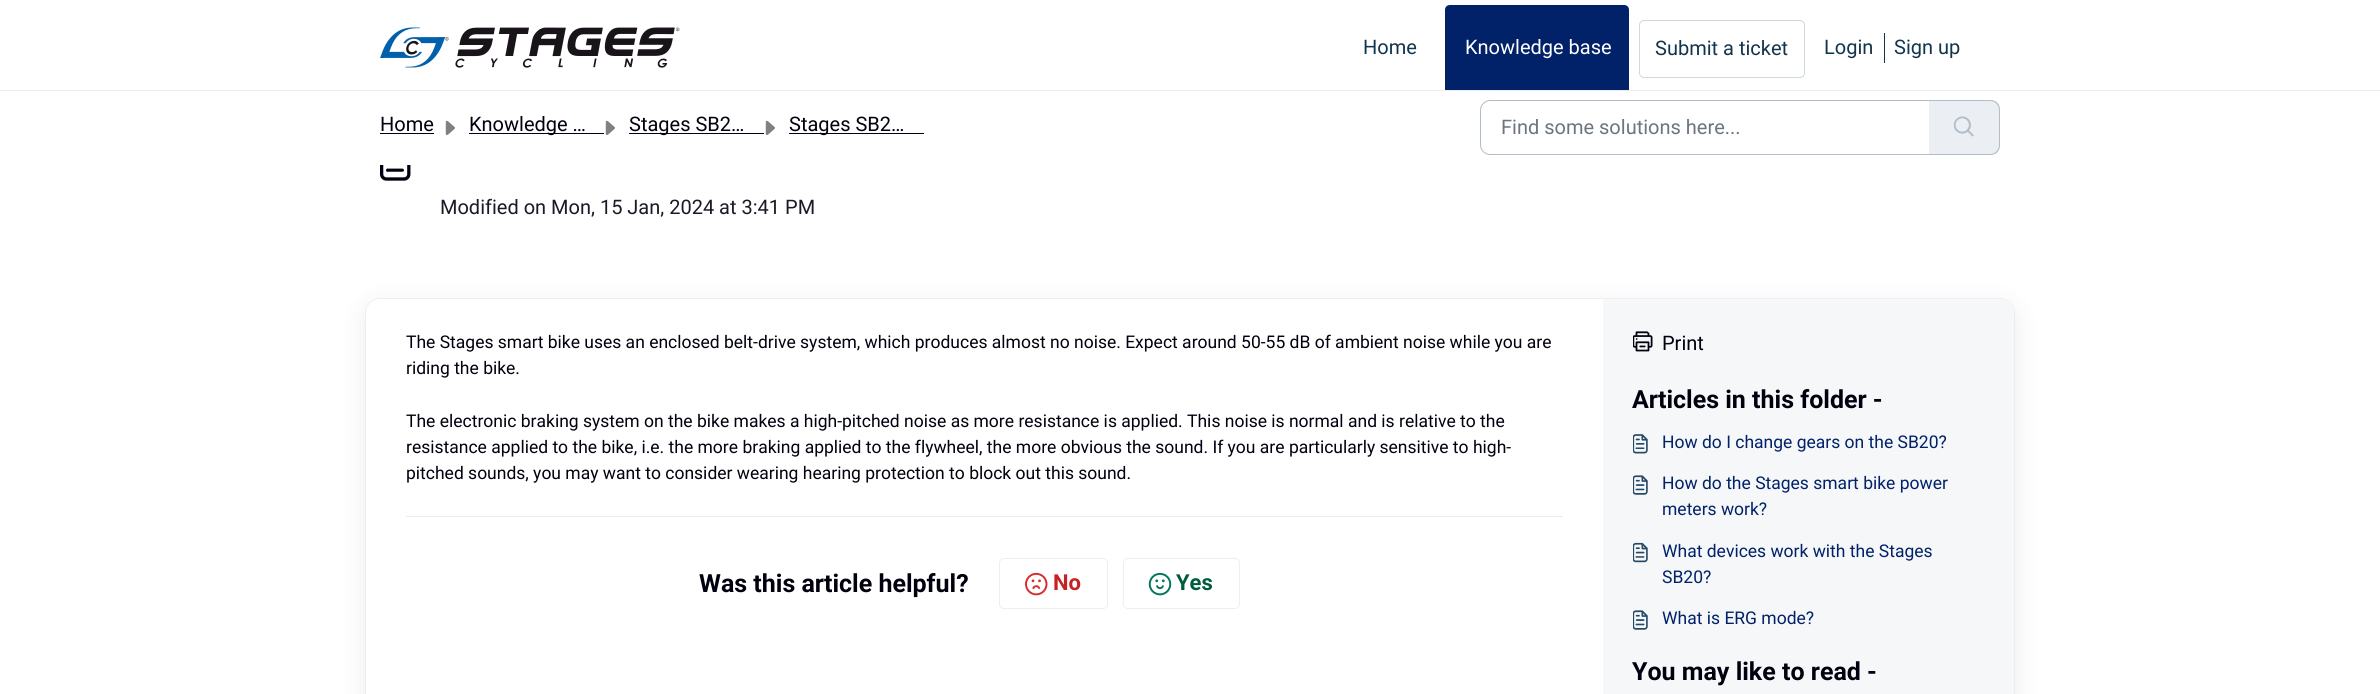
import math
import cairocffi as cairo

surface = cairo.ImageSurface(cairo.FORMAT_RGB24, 2380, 694)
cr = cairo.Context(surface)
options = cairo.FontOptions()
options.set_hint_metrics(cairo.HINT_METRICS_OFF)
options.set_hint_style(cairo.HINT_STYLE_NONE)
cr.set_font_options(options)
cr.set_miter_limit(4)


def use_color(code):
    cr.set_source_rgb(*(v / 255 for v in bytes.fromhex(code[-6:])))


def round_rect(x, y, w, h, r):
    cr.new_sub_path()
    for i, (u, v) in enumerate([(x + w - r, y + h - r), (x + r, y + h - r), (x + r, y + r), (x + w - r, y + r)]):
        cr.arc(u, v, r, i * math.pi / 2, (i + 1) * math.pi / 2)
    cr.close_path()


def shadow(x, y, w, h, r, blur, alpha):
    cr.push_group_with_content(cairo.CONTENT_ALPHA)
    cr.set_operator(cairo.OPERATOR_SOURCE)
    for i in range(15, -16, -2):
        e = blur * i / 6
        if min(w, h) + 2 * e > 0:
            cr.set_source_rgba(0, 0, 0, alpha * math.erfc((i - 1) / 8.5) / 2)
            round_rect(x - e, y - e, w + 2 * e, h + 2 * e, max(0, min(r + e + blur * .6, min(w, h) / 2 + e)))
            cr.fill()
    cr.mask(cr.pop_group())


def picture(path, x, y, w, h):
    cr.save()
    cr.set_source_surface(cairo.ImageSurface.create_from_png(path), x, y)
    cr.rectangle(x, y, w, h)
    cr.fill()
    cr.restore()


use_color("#ffffff")
cr.paint()
use_color("#ececec")
cr.rectangle(0, 90, 2380, 1)
cr.fill()
picture("img1.png", 380, 27, 300, 41)
cr.select_font_face("Roboto")
cr.set_font_size(20)
use_color("#12344d")
cr.move_to(1363, 54)
cr.show_text("Home")
use_color("#012169")
cr.new_path()
cr.move_to(1450, 5)
cr.line_to(1624, 5)
cr.curve_to(1627, 5, 1629, 7, 1629, 10)
cr.line_to(1629, 90)
cr.line_to(1445, 90)
cr.line_to(1445, 10)
cr.curve_to(1445, 7, 1447, 5, 1450, 5)
cr.close_path()
cr.fill()
use_color("#ffffff")
cr.move_to(1465, 54)
cr.show_text("Knowledge base")
round_rect(1639.5, 20.5, 165, 57, 4.5)
use_color("#cfd7df")
cr.set_line_width(1)
cr.stroke()
use_color("#12344d")
cr.move_to(1655, 55)
cr.show_text("Submit a ticket")
cr.move_to(1824, 54)
cr.show_text("Login")
cr.rectangle(1884, 33, 1, 30)
cr.fill()
cr.move_to(1894, 54)
cr.show_text("Sign up")
use_color("#00000e")
cr.move_to(380, 131)
cr.show_text("Home")
cr.rectangle(380, 133, 54, 1)
cr.fill()
picture("img2.png", 445, 120, 10, 15)
cr.rectangle(469, 133, 135, 1)
cr.fill()
cr.move_to(469, 131)
cr.show_text("Knowledge …")
picture("img2.png", 605, 120, 10, 15)
cr.rectangle(629, 133, 135, 1)
cr.fill()
cr.move_to(629, 131)
cr.show_text("Stages SB2…")
picture("img2.png", 765, 120, 10, 15)
cr.rectangle(789, 133, 135, 1)
cr.fill()
cr.move_to(789, 131)
cr.show_text("Stages SB2…")
cr.new_path()
cr.move_to(1490, 100.5)
cr.line_to(1929.5, 100.5)
cr.line_to(1929.5, 154.5)
cr.line_to(1490, 154.5)
cr.curve_to(1485, 154.5, 1480.5, 150, 1480.5, 145)
cr.line_to(1480.5, 110)
cr.curve_to(1480.5, 105, 1485, 100.5, 1490, 100.5)
cr.close_path()
use_color("#b1bdc8")
cr.stroke()
use_color("#6c757d")
cr.move_to(1501, 134)
cr.show_text("Find some solutions here...")
use_color("#ebeff3")
cr.new_path()
cr.move_to(1929, 100)
cr.line_to(1990, 100)
cr.curve_to(1995.5, 100, 2000, 104.5, 2000, 110)
cr.line_to(2000, 145)
cr.curve_to(2000, 150.5, 1995.5, 155, 1990, 155)
cr.line_to(1929, 155)
cr.close_path()
cr.fill()
use_color("#b1bdc8")
cr.set_fill_rule(cairo.FILL_RULE_EVEN_ODD)
cr.new_path()
cr.move_to(1929, 100)
cr.line_to(1990, 100)
cr.curve_to(1996, 100, 2000, 104, 2000, 110)
cr.line_to(2000, 145)
cr.curve_to(2000, 151, 1996, 155, 1990, 155)
cr.line_to(1929, 155)
cr.close_path()
cr.move_to(1929, 101)
cr.line_to(1990, 101)
cr.curve_to(1995, 101, 1999, 105, 1999, 110)
cr.line_to(1999, 145)
cr.curve_to(1999, 150, 1995, 154, 1990, 154)
cr.line_to(1929, 154)
cr.close_path()
cr.fill()
picture("img3.png", 1953, 116, 21, 21)
picture("img4.png", 380, 165, 31, 16)
use_color("#1a1a26")
cr.move_to(440, 214)
cr.show_text("Modified on Mon, 15 Jan, 2024 at 3:41 PM")
cr.save()
cr.new_path()
cr.move_to(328, 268)
cr.line_to(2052, 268)
cr.line_to(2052, 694)
cr.line_to(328, 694)
cr.close_path()
cr.move_to(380, 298)
cr.line_to(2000, 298)
cr.curve_to(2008.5, 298, 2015, 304.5, 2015, 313)
cr.line_to(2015, 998)
cr.curve_to(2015, 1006.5, 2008.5, 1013, 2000, 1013)
cr.line_to(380, 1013)
cr.curve_to(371.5, 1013, 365, 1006.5, 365, 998)
cr.line_to(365, 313)
cr.curve_to(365, 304.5, 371.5, 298, 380, 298)
cr.close_path()
cr.clip()
use_color("#27313a")
shadow(365, 305, 1650, 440, 15, 12, 0.1)
cr.restore()
round_rect(365.5, 298.5, 1649, 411, 14.5)
use_color("#ebeff3")
cr.stroke()
cr.set_font_size(17.5)
use_color("#00000e")
cr.move_to(406, 348)
cr.show_text("The Stages smart bike uses an enclosed belt-drive system, which produces almost no noise. Expect around 50-55 dB of ambient noise while you are")
cr.move_to(406, 374)
cr.show_text("riding the bike.")
cr.move_to(406, 427)
cr.show_text("The electronic braking system on the bike makes a high-pitched noise as more resistance is applied. This noise is normal and is relative to the")
cr.move_to(406, 453)
cr.show_text("resistance applied to the bike, i.e. the more braking applied to the flywheel, the more obvious the sound. If you are particularly sensitive to high-")
cr.move_to(406, 479)
cr.show_text("pitched sounds, you may want to consider wearing hearing protection to block out this sound.")
use_color("#ececec")
cr.rectangle(406, 516, 1157, 1)
cr.fill()
cr.select_font_face("Roboto", cairo.FONT_SLANT_NORMAL, cairo.FONT_WEIGHT_BOLD)
cr.set_font_size(25)
use_color("#00000e")
cr.move_to(699, 592)
cr.show_text("Was this article helpful?")
round_rect(999.5, 558.5, 108, 50, 4.5)
use_color("#ebeff3")
cr.stroke()
picture("img5.png", 1025, 572, 23, 24)
cr.set_font_size(22)
use_color("#c82124")
cr.move_to(1053, 590)
cr.show_text("No")
round_rect(1123.5, 558.5, 116, 50, 4.5)
use_color("#ebeff3")
cr.stroke()
picture("img6.png", 1148, 572, 24, 24)
use_color("#005c3f")
cr.move_to(1176, 590)
cr.show_text("Yes")
use_color("#f5f7f9")
cr.new_path()
cr.move_to(1603, 299)
cr.line_to(1999, 299)
cr.curve_to(2007.5, 299, 2014, 305.5, 2014, 314)
cr.line_to(2014, 694)
cr.curve_to(2014, 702.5, 2007.5, 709, 1999, 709)
cr.line_to(1603, 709)
cr.close_path()
cr.fill()
picture("img7.png", 1633, 331, 20, 21)
cr.select_font_face("Roboto")
cr.set_font_size(20)
use_color("#00000e")
cr.move_to(1662, 350)
cr.show_text("Print")
cr.select_font_face("Roboto", cairo.FONT_SLANT_NORMAL, cairo.FONT_WEIGHT_BOLD)
cr.set_font_size(25)
cr.move_to(1632, 408)
cr.show_text("Articles in this folder -")
picture("img8.png", 1633, 434, 15, 20)
cr.select_font_face("Roboto")
cr.set_font_size(17.5)
use_color("#012169")
cr.move_to(1662, 448)
cr.show_text("How do I change gears on the SB20?")
picture("img9.png", 1633, 475, 15, 20)
cr.move_to(1662, 489)
cr.show_text("How do the Stages smart bike power")
cr.move_to(1662, 515)
cr.show_text("meters work?")
picture("img10.png", 1633, 542, 15, 21)
cr.move_to(1662, 557)
cr.show_text("What devices work with the Stages")
cr.move_to(1662, 583)
cr.show_text("SB20?")
picture("img9.png", 1633, 610, 15, 20)
cr.move_to(1662, 624)
cr.show_text("What is ERG mode?")
cr.select_font_face("Roboto", cairo.FONT_SLANT_NORMAL, cairo.FONT_WEIGHT_BOLD)
cr.set_font_size(25)
use_color("#00000e")
cr.move_to(1632, 680)
cr.show_text("You may like to read -")
surface.write_to_png("result.png")
